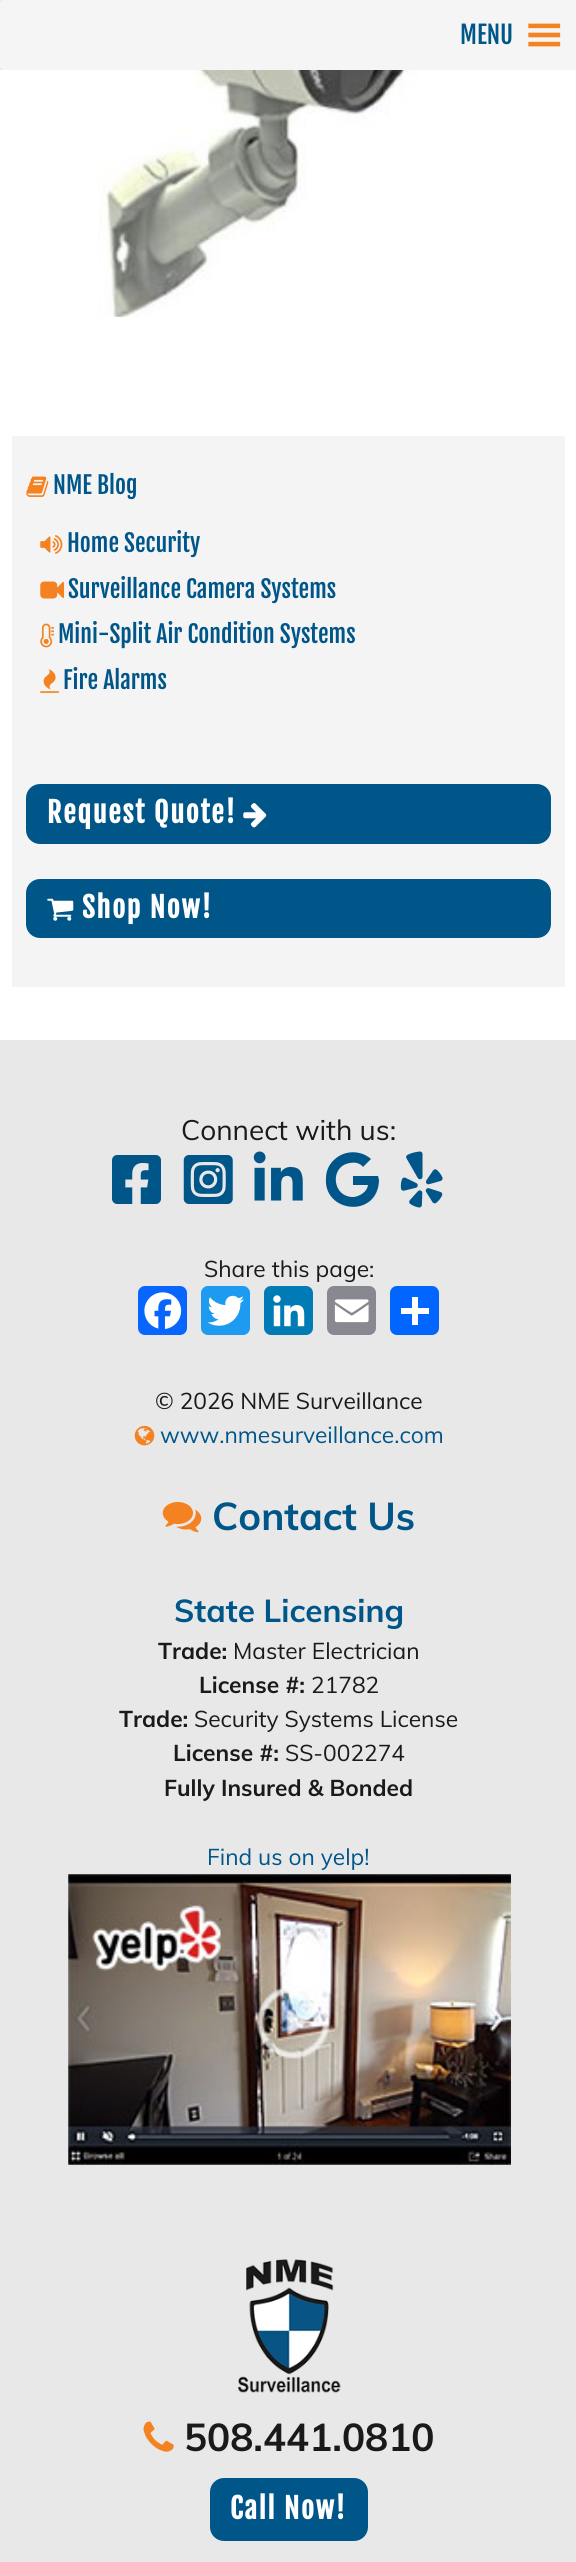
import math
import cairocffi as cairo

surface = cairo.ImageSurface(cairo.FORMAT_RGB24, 576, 2562)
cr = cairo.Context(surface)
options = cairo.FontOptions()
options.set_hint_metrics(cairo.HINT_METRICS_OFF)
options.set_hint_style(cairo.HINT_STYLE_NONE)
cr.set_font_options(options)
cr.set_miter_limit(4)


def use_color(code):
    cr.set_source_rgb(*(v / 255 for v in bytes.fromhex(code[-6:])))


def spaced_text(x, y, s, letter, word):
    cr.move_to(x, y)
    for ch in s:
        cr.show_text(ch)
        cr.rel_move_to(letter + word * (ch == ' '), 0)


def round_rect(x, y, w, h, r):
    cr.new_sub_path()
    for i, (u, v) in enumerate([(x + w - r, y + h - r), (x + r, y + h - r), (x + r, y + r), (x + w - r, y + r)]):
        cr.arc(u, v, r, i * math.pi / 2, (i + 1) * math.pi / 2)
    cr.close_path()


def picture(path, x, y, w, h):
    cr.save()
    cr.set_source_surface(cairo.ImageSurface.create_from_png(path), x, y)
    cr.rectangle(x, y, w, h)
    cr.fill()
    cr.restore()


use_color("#ffffff")
cr.paint()
use_color("#e8e8e8")
cr.rectangle(0, 0, 576, 70)
cr.fill()
use_color("#f5f5f5")
round_rect(0, 0, 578, 70, 4)
cr.fill()
cr.select_font_face("Fjalla One")
cr.set_font_size(24.5)
use_color("#005689")
cr.move_to(460, 44)
cr.show_text("MENU")
picture("img1.png", 528, 23, 33, 24)
picture("img2.png", 98, 70, 346, 247)
use_color("#f4f4f4")
cr.rectangle(12, 436, 553, 551)
cr.fill()
picture("img3.png", 26, 476, 23, 21)
cr.set_font_size(23.75)
use_color("#005689")
cr.move_to(53, 494)
cr.show_text("NME Blog")
picture("img4.png", 40, 535, 23, 19)
cr.move_to(67, 552)
cr.show_text("Home Security")
picture("img5.png", 40, 581, 25, 18)
cr.move_to(68, 598)
cr.show_text("Surveillance Camera Systems")
picture("img6.png", 40, 623, 14, 25)
cr.move_to(58, 643)
cr.show_text("Mini-Split Air Condition Systems")
picture("img7.png", 40, 669, 19, 24)
cr.move_to(63, 689)
cr.show_text("Fire Alarms")
round_rect(26, 784, 525, 60, 14)
cr.fill()
cr.select_font_face("Fjalla One", cairo.FONT_SLANT_NORMAL, cairo.FONT_WEIGHT_BOLD)
cr.set_font_size(28)
use_color("#ffffff")
spaced_text(47, 823, "Request Quote!", 1.75, 0)
picture("img8.png", 243, 803, 24, 25)
use_color("#005689")
round_rect(26, 879, 525, 59, 14)
cr.fill()
picture("img9.png", 47, 898, 27, 23)
use_color("#ffffff")
spaced_text(82, 918, "Shop Now!", 1.75, 0)
use_color("#e8e8e8")
cr.rectangle(0, 1040, 576, 1522)
cr.fill()
cr.select_font_face("Muli")
use_color("#1a1a1a")
cr.move_to(181, 1140)
cr.show_text("Connect with us:")
picture("img10.png", 112, 1155, 49, 49)
picture("img11.png", 183, 1155, 50, 49)
picture("img12.png", 253, 1151, 50, 50)
use_color("#005689")
cr.new_path()
cr.move_to(379, 1180)
cr.curve_to(378, 1219, 323, 1213, 326, 1178)
cr.curve_to(326, 1171, 329, 1164, 335, 1159)
cr.curve_to(345, 1150, 361, 1150, 371, 1159)
cr.line_to(363, 1167)
cr.curve_to(360, 1163, 355, 1162, 350, 1163)
cr.curve_to(329, 1166, 332, 1198, 354, 1197)
cr.curve_to(360, 1196, 367, 1192, 368, 1185)
cr.line_to(353, 1185)
cr.line_to(353, 1176)
cr.line_to(378, 1176)
cr.close_path()
cr.fill()
picture("img13.png", 400, 1151, 43, 57)
cr.set_font_size(22.75)
use_color("#1a1a1a")
cr.move_to(204, 1277)
cr.show_text("Share this page:")
use_color("#0866ff")
round_rect(138, 1286, 49, 49, 7)
cr.fill()
picture("img14.png", 144, 1292, 38, 37)
use_color("#1d9bf0")
round_rect(201, 1286, 49, 49, 7)
cr.fill()
picture("img15.png", 207, 1295, 37, 31)
use_color("#007bb5")
round_rect(264, 1286, 49, 49, 7)
cr.fill()
picture("img16.png", 273, 1295, 32, 32)
use_color("#888990")
round_rect(327, 1286, 49, 49, 7)
cr.fill()
picture("img17.png", 334, 1299, 35, 24)
use_color("#0166ff")
round_rect(390, 1286, 49, 49, 7)
cr.fill()
use_color("#ffffff")
cr.rectangle(412, 1297, 6, 28)
cr.fill()
cr.rectangle(401, 1308, 28, 6)
cr.fill()
use_color("#1a1a1a")
cr.move_to(155, 1409)
cr.show_text("© 2026 NME Surveillance")
picture("img18.png", 134, 1425, 21, 21)
use_color("#005689")
cr.move_to(160, 1443)
cr.show_text("www.nmesurveillance.com")
picture("img19.png", 162, 1502, 40, 31)
cr.select_font_face("Muli", cairo.FONT_SLANT_NORMAL, cairo.FONT_WEIGHT_BOLD)
cr.set_font_size(38.5)
cr.move_to(212, 1530)
cr.show_text("Contact Us")
cr.set_font_size(31.5)
cr.move_to(174, 1622)
cr.show_text("State Licensing")
cr.set_font_size(22.75)
use_color("#1a1a1a")
cr.move_to(158, 1659)
cr.show_text("Trade:")
cr.select_font_face("Muli")
cr.move_to(233, 1659)
cr.show_text("Master Electrician")
cr.select_font_face("Muli", cairo.FONT_SLANT_NORMAL, cairo.FONT_WEIGHT_BOLD)
cr.move_to(199, 1693)
cr.show_text("License #:")
cr.select_font_face("Muli")
cr.move_to(311, 1693)
cr.show_text("21782")
cr.select_font_face("Muli", cairo.FONT_SLANT_NORMAL, cairo.FONT_WEIGHT_BOLD)
cr.move_to(119, 1727)
cr.show_text("Trade:")
cr.select_font_face("Muli")
cr.move_to(194, 1727)
cr.show_text("Security Systems License")
cr.select_font_face("Muli", cairo.FONT_SLANT_NORMAL, cairo.FONT_WEIGHT_BOLD)
cr.move_to(173, 1761)
cr.show_text("License #:")
cr.select_font_face("Muli")
cr.move_to(285, 1761)
cr.show_text("SS-002274")
cr.select_font_face("Muli", cairo.FONT_SLANT_NORMAL, cairo.FONT_WEIGHT_BOLD)
cr.move_to(164, 1796)
cr.show_text("Fully Insured & Bonded")
cr.select_font_face("Muli")
use_color("#005689")
cr.move_to(207, 1865)
cr.show_text("Find us on yelp!")
picture("img20.png", 68, 1874, 443, 291)
picture("img21.png", 238, 2259, 103, 134)
picture("img22.png", 143, 2421, 31, 31)
cr.select_font_face("Muli", cairo.FONT_SLANT_NORMAL, cairo.FONT_WEIGHT_BOLD)
cr.set_font_size(38.5)
use_color("#1a1a1a")
cr.move_to(184, 2451)
cr.show_text("508.441.0810")
use_color("#005689")
round_rect(210, 2478, 158, 63, 14)
cr.fill()
cr.select_font_face("Fjalla One", cairo.FONT_SLANT_NORMAL, cairo.FONT_WEIGHT_BOLD)
cr.set_font_size(28)
use_color("#ffffff")
spaced_text(230, 2519, "Call Now!", 1.75, 0)
surface.write_to_png("result.png")
